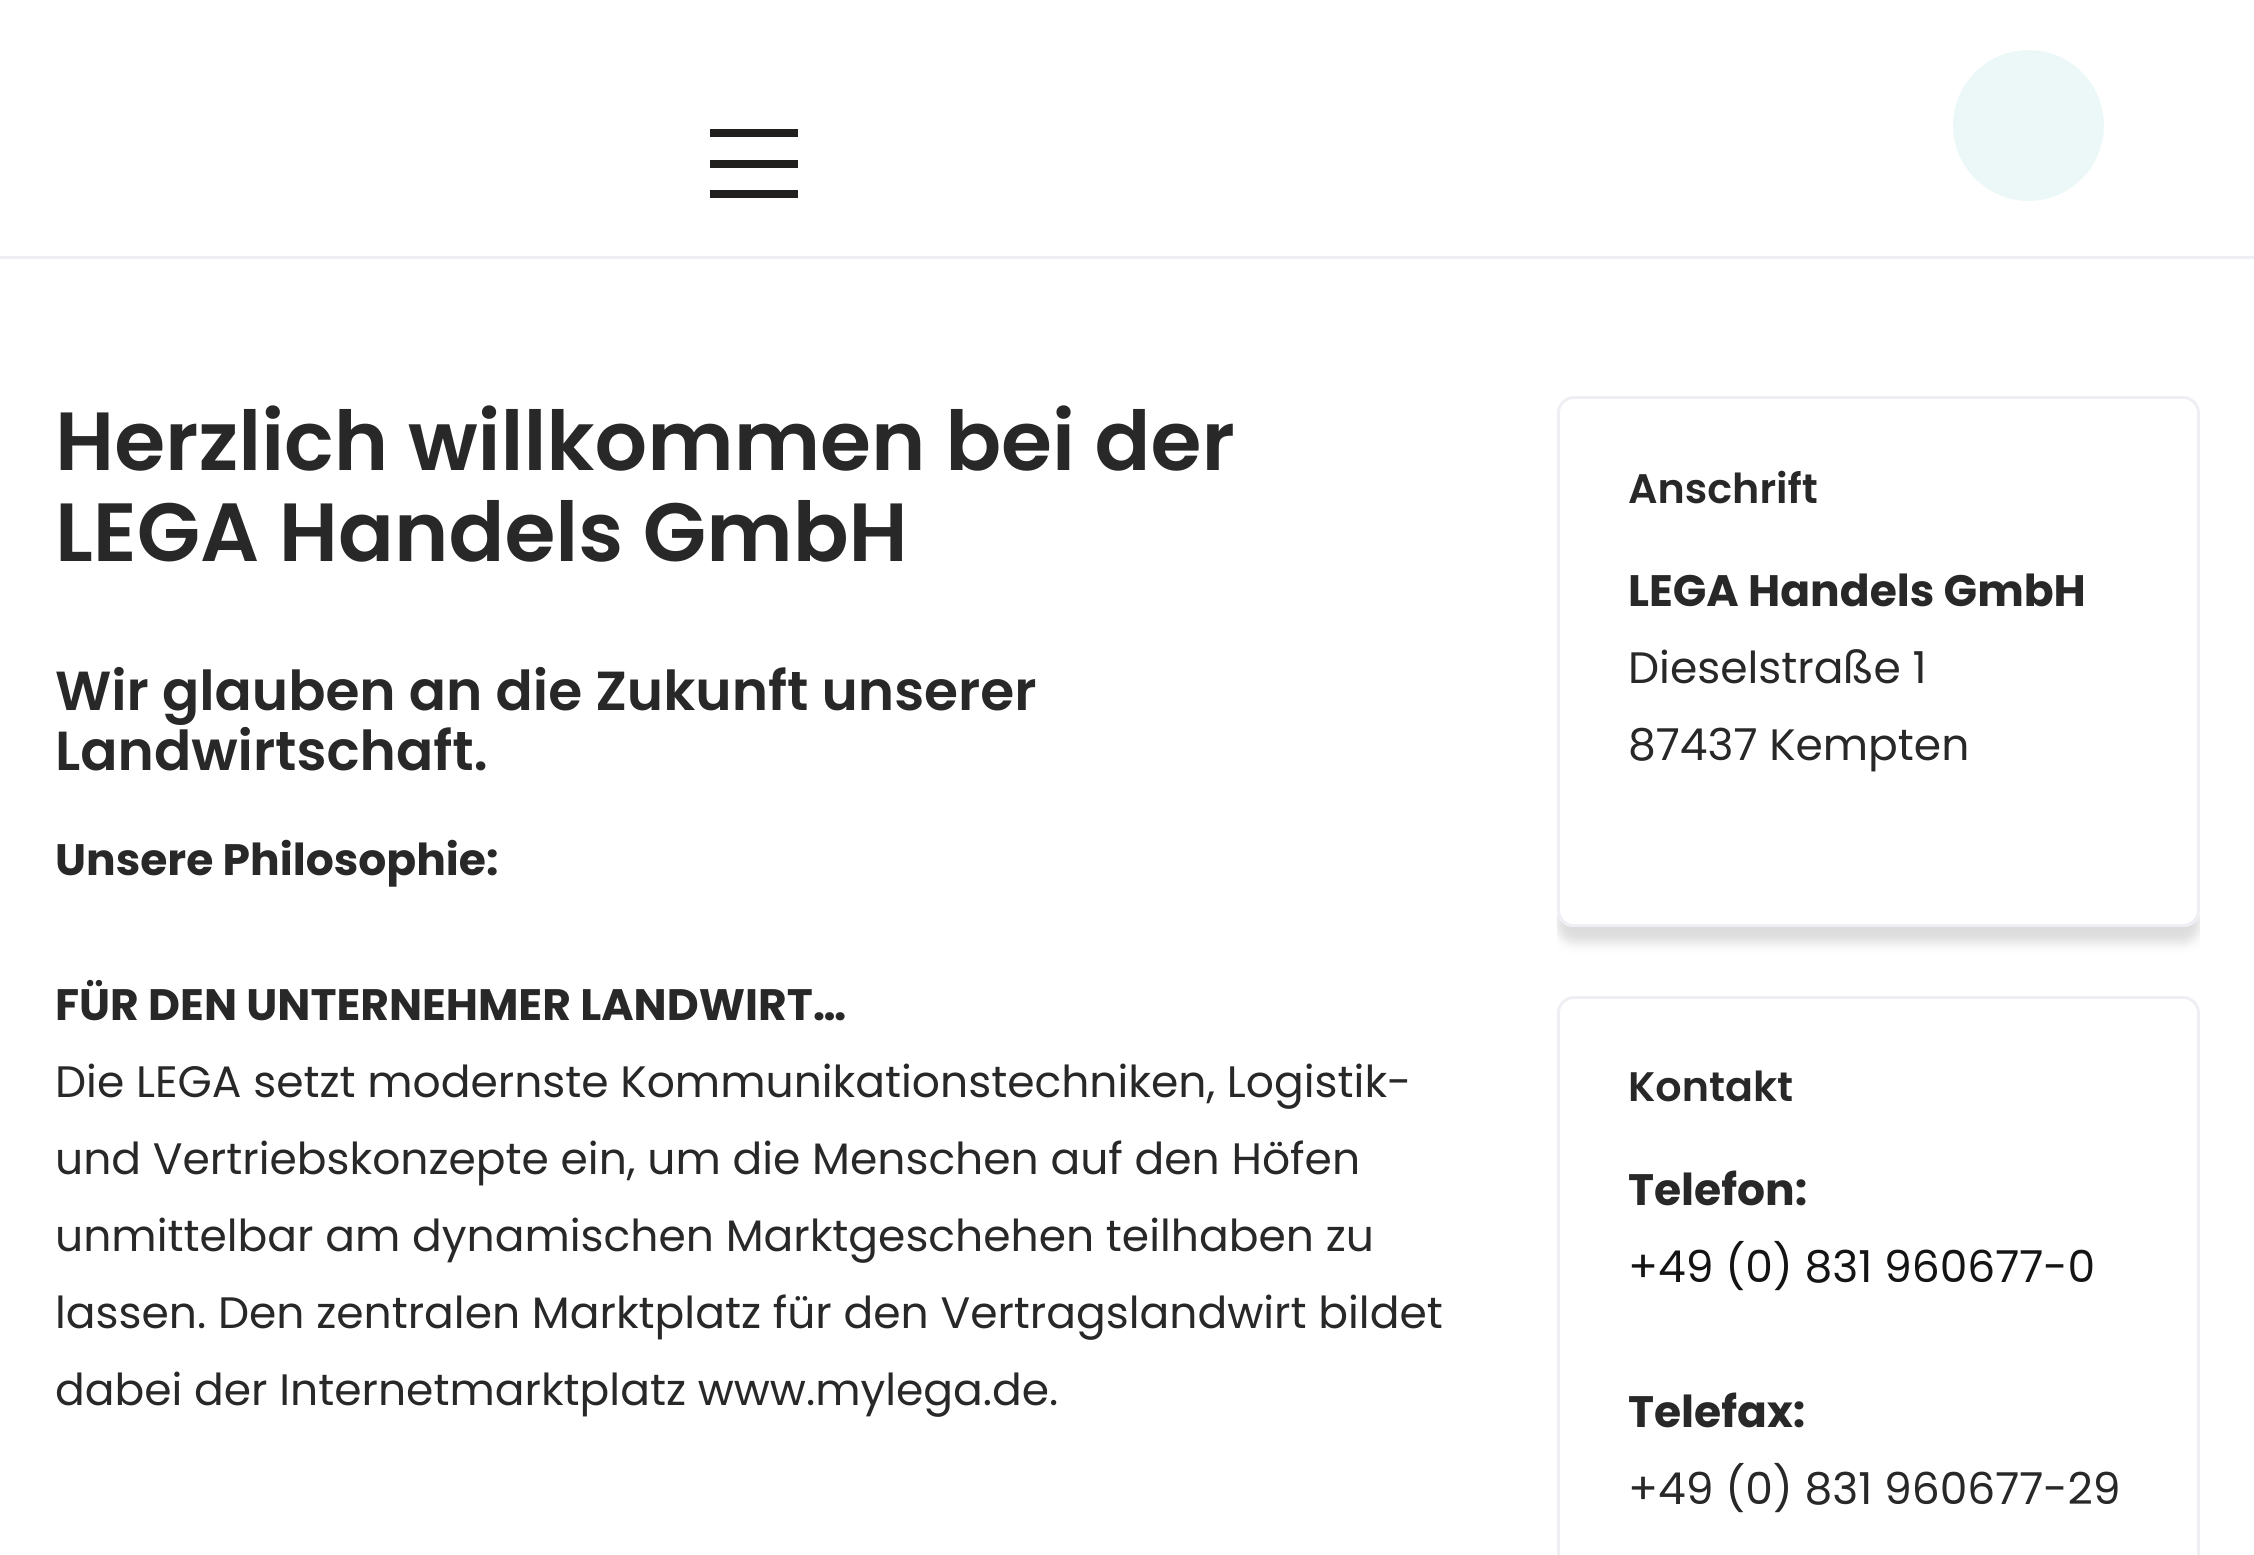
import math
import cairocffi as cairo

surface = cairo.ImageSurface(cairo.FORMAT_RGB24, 2254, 1555)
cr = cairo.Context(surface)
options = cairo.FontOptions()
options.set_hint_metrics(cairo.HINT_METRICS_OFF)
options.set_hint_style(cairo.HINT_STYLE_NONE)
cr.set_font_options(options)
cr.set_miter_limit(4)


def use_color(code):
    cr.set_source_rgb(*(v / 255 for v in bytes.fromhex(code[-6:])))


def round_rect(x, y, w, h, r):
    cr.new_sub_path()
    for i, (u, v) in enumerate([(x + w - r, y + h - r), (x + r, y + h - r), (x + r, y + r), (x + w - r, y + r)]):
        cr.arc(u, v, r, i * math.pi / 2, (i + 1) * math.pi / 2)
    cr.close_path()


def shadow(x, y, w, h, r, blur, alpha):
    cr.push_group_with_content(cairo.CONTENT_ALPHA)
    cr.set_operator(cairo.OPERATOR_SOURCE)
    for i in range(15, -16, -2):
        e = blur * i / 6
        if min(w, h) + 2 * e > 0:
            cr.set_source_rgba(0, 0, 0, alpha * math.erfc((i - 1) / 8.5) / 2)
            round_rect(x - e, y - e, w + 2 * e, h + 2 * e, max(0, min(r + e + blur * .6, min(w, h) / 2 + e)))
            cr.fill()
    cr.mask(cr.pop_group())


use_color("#ffffff")
cr.paint()
use_color("#eeeff5")
cr.rectangle(0, 256, 2254, 3)
cr.fill()
use_color("#21201f")
cr.rectangle(710, 129, 88, 8)
cr.fill()
cr.rectangle(710, 160, 88, 8)
cr.fill()
cr.rectangle(710, 190, 88, 8)
cr.fill()
use_color("#ecf8f7")
cr.arc(2028.5, 125.5, 75.5, 0, 2 * math.pi)
cr.fill()
cr.select_font_face("Poppins SemiBold")
cr.set_font_size(82.5)
use_color("#282828")
cr.move_to(55, 470)
cr.show_text("Herzlich willkommen bei der")
cr.move_to(55, 561)
cr.show_text("LEGA Handels GmbH")
cr.set_font_size(55)
cr.move_to(55, 710)
cr.show_text("Wir glauben an die Zukunft unserer")
cr.move_to(55, 770)
cr.show_text("Landwirtschaft.")
cr.select_font_face("Poppins", cairo.FONT_SLANT_NORMAL, cairo.FONT_WEIGHT_BOLD)
cr.set_font_size(44)
cr.move_to(55, 875)
cr.show_text("Unsere Philosophie:")
cr.move_to(55, 1020)
cr.show_text("FÜR DEN UNTERNEHMER LANDWIRT…")
cr.select_font_face("Poppins")
cr.move_to(55, 1097)
cr.show_text("Die LEGA setzt modernste Kommunikationstechniken, Logistik-")
cr.move_to(55, 1174)
cr.show_text("und Vertriebskonzepte ein, um die Menschen auf den Höfen")
cr.move_to(55, 1251)
cr.show_text("unmittelbar am dynamischen Marktgeschehen teilhaben zu")
cr.move_to(55, 1328)
cr.show_text("lassen. Den zentralen Marktplatz für den Vertragslandwirt bildet")
cr.move_to(55, 1405)
cr.show_text("dabei der Internetmarktplatz www.mylega.de.")
cr.save()
cr.rectangle(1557, 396, 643, 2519)
cr.clip()
cr.set_fill_rule(cairo.FILL_RULE_EVEN_ODD)
cr.new_path()
cr.move_to(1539, 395)
cr.line_to(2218, 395)
cr.line_to(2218, 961)
cr.line_to(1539, 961)
cr.close_path()
cr.move_to(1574, 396)
cr.line_to(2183, 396)
cr.curve_to(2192.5, 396, 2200, 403.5, 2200, 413)
cr.line_to(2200, 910)
cr.curve_to(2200, 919.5, 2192.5, 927, 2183, 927)
cr.line_to(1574, 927)
cr.curve_to(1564.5, 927, 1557, 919.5, 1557, 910)
cr.line_to(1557, 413)
cr.curve_to(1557, 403.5, 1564.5, 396, 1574, 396)
cr.close_path()
cr.clip()
use_color("#dcdcdc")
shadow(1557, 413, 643, 530, 17, 5.5, 1)
cr.restore()
round_rect(1558.5, 397.5, 640, 528, 15.5)
use_color("#eeeff5")
cr.set_line_width(3)
cr.stroke()
cr.select_font_face("Poppins SemiBold")
cr.set_font_size(41.25)
use_color("#282828")
cr.move_to(1628, 503)
cr.show_text("Anschrift")
cr.select_font_face("Poppins", cairo.FONT_SLANT_NORMAL, cairo.FONT_WEIGHT_BOLD)
cr.set_font_size(44)
cr.move_to(1628, 606)
cr.show_text("LEGA Handels GmbH")
cr.select_font_face("Poppins")
cr.move_to(1628, 683)
cr.show_text("Dieselstraße 1")
cr.move_to(1628, 760)
cr.show_text("87437 Kempten")
round_rect(1558.5, 997.5, 640, 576, 15.5)
use_color("#eeeff5")
cr.stroke()
cr.select_font_face("Poppins SemiBold")
cr.set_font_size(41.25)
use_color("#282828")
cr.move_to(1628, 1101)
cr.show_text("Kontakt")
cr.select_font_face("Poppins", cairo.FONT_SLANT_NORMAL, cairo.FONT_WEIGHT_BOLD)
cr.set_font_size(44)
cr.move_to(1628, 1205)
cr.show_text("Telefon:")
cr.select_font_face("Poppins")
use_color("#141414")
cr.move_to(1628, 1282)
cr.show_text("+49 (0) 831 960677-0")
cr.select_font_face("Poppins", cairo.FONT_SLANT_NORMAL, cairo.FONT_WEIGHT_BOLD)
use_color("#282828")
cr.move_to(1628, 1427)
cr.show_text("Telefax:")
cr.select_font_face("Poppins")
cr.move_to(1628, 1504)
cr.show_text("+49 (0) 831 960677-29")
surface.write_to_png("result.png")
